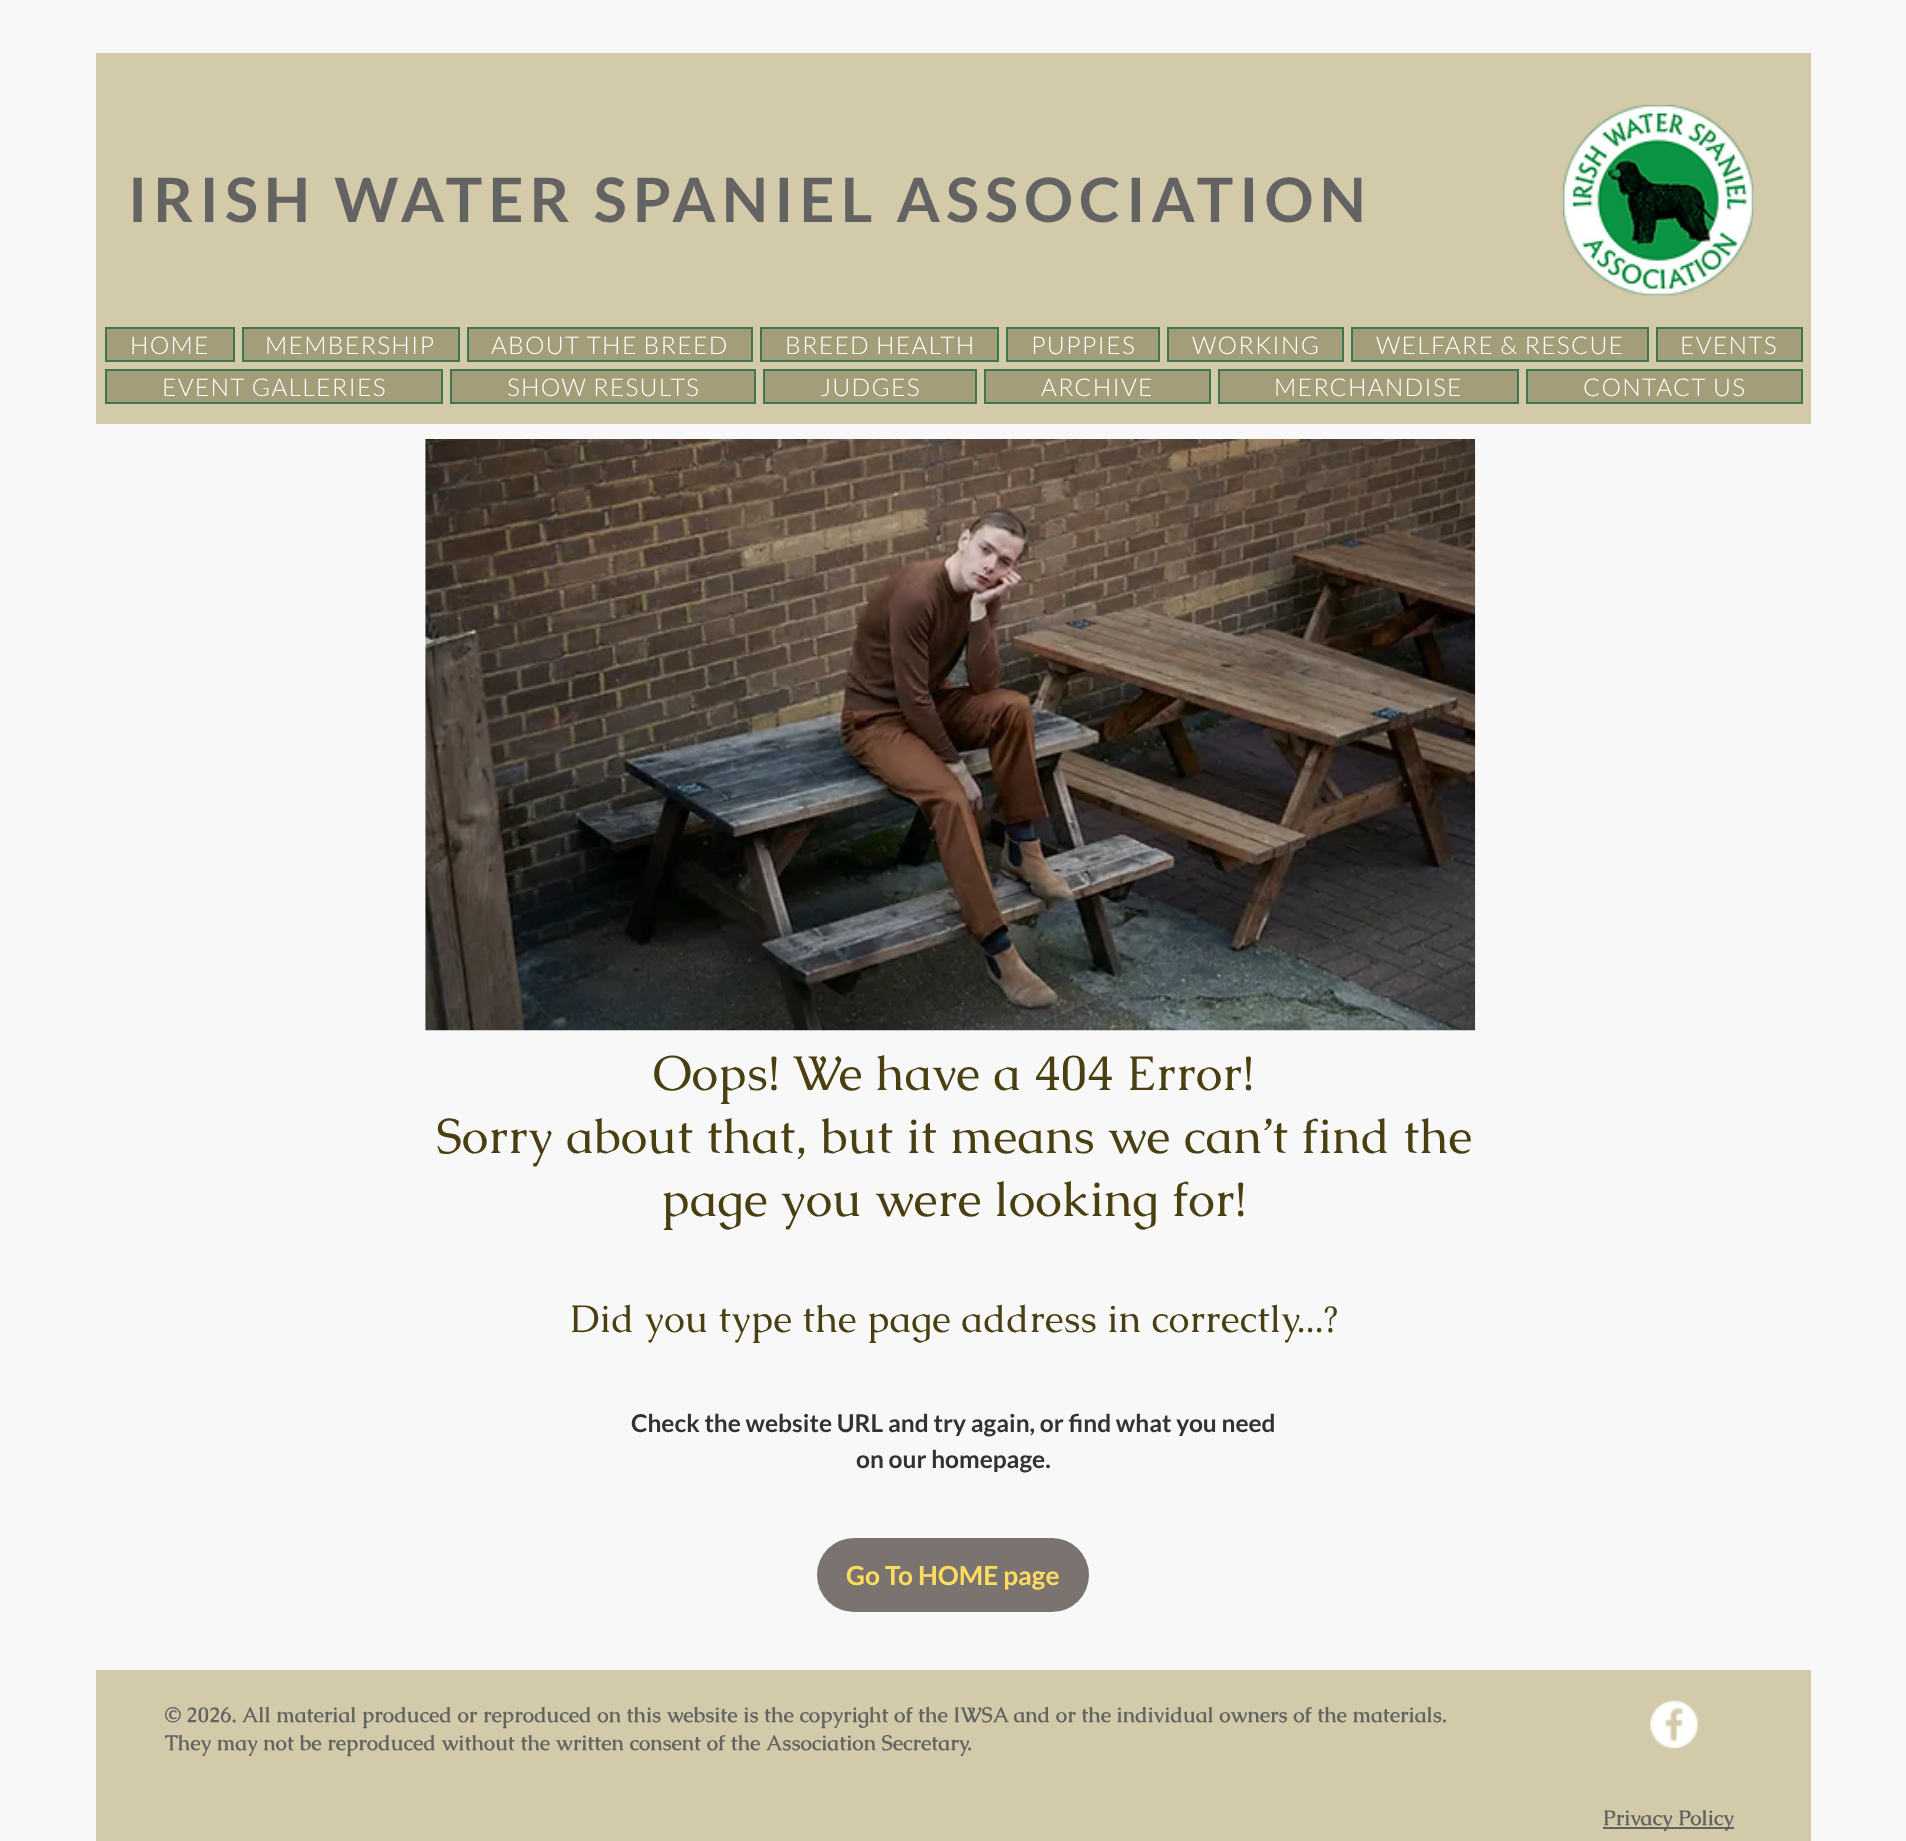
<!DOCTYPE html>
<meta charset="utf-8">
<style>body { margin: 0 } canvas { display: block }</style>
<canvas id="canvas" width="1906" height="1841"></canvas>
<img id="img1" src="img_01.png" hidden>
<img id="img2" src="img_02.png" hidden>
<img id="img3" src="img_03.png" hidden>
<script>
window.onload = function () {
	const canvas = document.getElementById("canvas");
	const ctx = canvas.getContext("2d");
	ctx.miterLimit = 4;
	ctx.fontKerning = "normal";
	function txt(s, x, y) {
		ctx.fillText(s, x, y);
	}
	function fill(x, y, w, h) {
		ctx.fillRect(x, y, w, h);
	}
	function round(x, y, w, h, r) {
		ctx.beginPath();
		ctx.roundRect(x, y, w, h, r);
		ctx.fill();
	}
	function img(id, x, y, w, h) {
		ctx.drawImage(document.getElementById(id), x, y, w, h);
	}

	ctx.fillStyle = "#F8F8F8";
	fill(0, 0, 1906, 1841);
	ctx.fillStyle = "#D2CAA8";
	fill(96, 53, 1715, 371);
	img("img1", 1562, 104, 192, 192);
	ctx.fillStyle = "#A49D79";
	ctx.beginPath();
	ctx.rect(106, 328, 128, 33);
	ctx.fill();
	ctx.strokeStyle = "#3F7652";
	ctx.lineWidth = 2;
	ctx.stroke();
	ctx.beginPath();
	ctx.rect(243, 328, 216, 33);
	ctx.fill();
	ctx.stroke();
	ctx.beginPath();
	ctx.rect(468, 328, 284, 33);
	ctx.fill();
	ctx.stroke();
	ctx.beginPath();
	ctx.rect(761, 328, 237, 33);
	ctx.fill();
	ctx.stroke();
	ctx.beginPath();
	ctx.rect(1007, 328, 152, 33);
	ctx.fill();
	ctx.stroke();
	ctx.beginPath();
	ctx.rect(1168, 328, 175, 33);
	ctx.fill();
	ctx.stroke();
	ctx.beginPath();
	ctx.rect(1352, 328, 296, 33);
	ctx.fill();
	ctx.stroke();
	ctx.beginPath();
	ctx.rect(1657, 328, 145, 33);
	ctx.fill();
	ctx.stroke();
	ctx.beginPath();
	ctx.rect(106, 370, 336, 33);
	ctx.fill();
	ctx.stroke();
	ctx.beginPath();
	ctx.rect(451, 370, 304, 33);
	ctx.fill();
	ctx.stroke();
	ctx.beginPath();
	ctx.rect(764, 370, 212, 33);
	ctx.fill();
	ctx.stroke();
	ctx.beginPath();
	ctx.rect(985, 370, 225, 33);
	ctx.fill();
	ctx.stroke();
	ctx.beginPath();
	ctx.rect(1219, 370, 299, 33);
	ctx.fill();
	ctx.stroke();
	ctx.beginPath();
	ctx.rect(1527, 370, 275, 33);
	ctx.fill();
	ctx.stroke();
	img("img2", 425, 439, 1051, 592);
	ctx.fillStyle = "#7B736F";
	round(817, 1538, 272, 74, 37);
	ctx.fillStyle = "#D2CAA8";
	fill(96, 1670, 1715, 171);
	img("img3", 1650, 1700, 48, 48);
	ctx.fillStyle = "#636363";
	fill(1603, 1827, 131, 2);
	ctx.letterSpacing = "6.1px";
	ctx.font = "bold 61.25px Lato";
	txt("IRISH WATER SPANIEL ASSOCIATION", 128, 222);
	ctx.letterSpacing = "1.25px";
	ctx.font = "300 24.5px Lato";
	ctx.fillStyle = "#FFFFFF";
	txt("HOME", 130, 354);
	txt("MEMBERSHIP", 265, 354);
	txt("ABOUT THE BREED", 491, 354);
	txt("BREED HEALTH", 785, 354);
	txt("PUPPIES", 1031, 354);
	txt("WORKING", 1192, 354);
	txt("WELFARE & RESCUE", 1376, 354);
	txt("EVENTS", 1680, 354);
	txt("EVENT GALLERIES", 162, 396);
	txt("SHOW RESULTS", 507, 396);
	txt("JUDGES", 820, 396);
	txt("ARCHIVE", 1041, 396);
	txt("MERCHANDISE", 1274, 396);
	txt("CONTACT US", 1583, 396);
	ctx.letterSpacing = "0px";
	ctx.font = "49px Caudex";
	ctx.fillStyle = "#4A3F10";
	txt("Oops! We have a 404 Error!", 653, 1090);
	txt("Sorry about that, but it means we can’t find the", 436, 1153);
	txt("page you were looking for!", 661, 1216);
	ctx.font = "38.5px Caudex";
	txt("Did you type the page address in correctly...?", 570, 1332);
	ctx.font = "bold 24.5px Lato";
	ctx.fillStyle = "#323232";
	txt("Check the website URL and try again, or find what you need", 631, 1432);
	txt("on our homepage.", 856, 1468);
	ctx.font = "bold 26.25px Lato";
	ctx.fillStyle = "#FFDE5F";
	txt("Go To HOME page", 846, 1585);
	ctx.font = "bold 21px Caudex";
	ctx.fillStyle = "#636363";
	txt("© 2026. All material produced or reproduced on this website is the copyright of the IWSA and or the individual owners of the materials.", 165, 1722);
	txt("They may not be reproduced without the written consent of the Association Secretary.", 165, 1750);
	txt("Privacy Policy", 1603, 1825);
};
</script>
